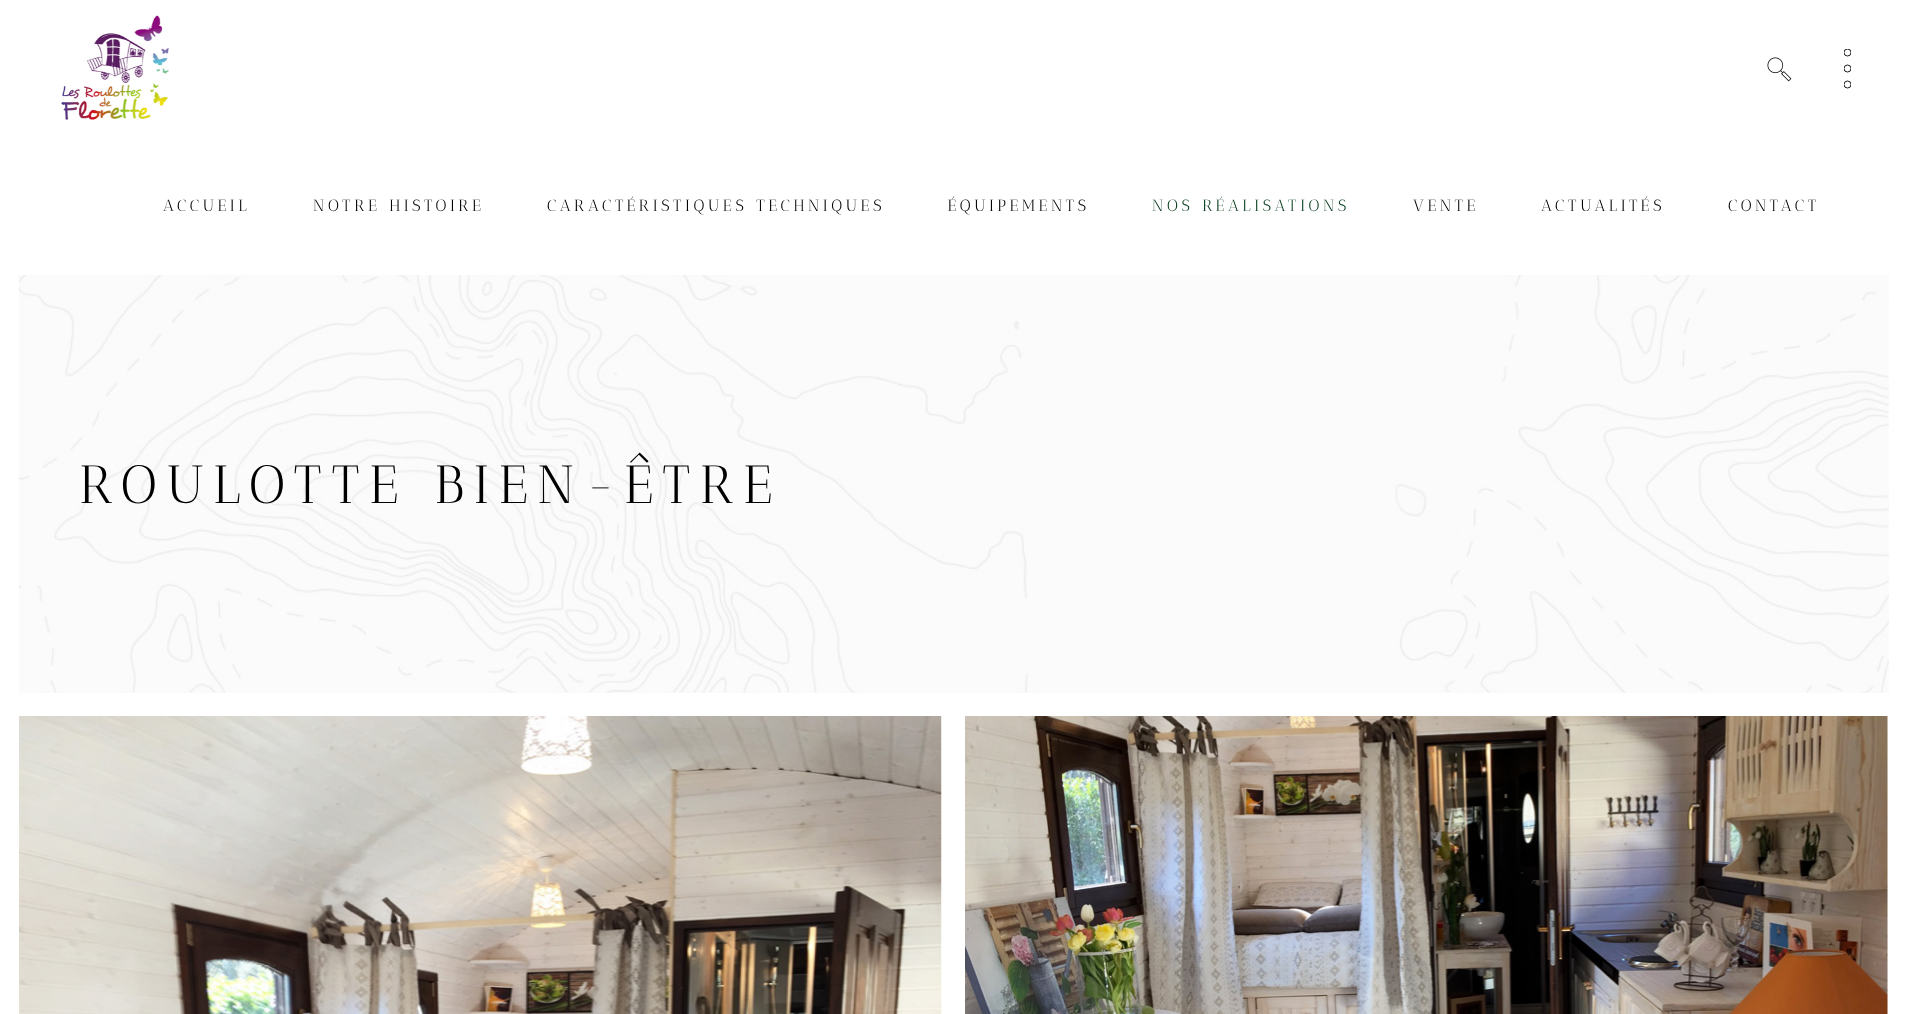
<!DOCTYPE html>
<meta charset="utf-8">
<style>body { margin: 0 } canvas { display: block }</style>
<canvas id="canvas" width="1907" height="1014"></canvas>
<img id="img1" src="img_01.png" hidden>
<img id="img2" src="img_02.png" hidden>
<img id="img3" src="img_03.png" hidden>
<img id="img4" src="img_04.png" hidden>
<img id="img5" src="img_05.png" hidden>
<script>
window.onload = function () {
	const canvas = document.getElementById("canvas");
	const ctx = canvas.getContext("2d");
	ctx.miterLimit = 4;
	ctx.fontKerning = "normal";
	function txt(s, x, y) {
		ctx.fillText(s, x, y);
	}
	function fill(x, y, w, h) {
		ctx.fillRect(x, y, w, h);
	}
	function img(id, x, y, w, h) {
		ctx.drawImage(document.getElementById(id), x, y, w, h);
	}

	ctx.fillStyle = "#FFFFFF";
	fill(0, 0, 1907, 1014);
	img("img1", 61, 15, 108, 105);
	ctx.save();
	ctx.beginPath();
	ctx.rect(1844, 49, 7, 40);
	ctx.clip();
	ctx.beginPath();
	ctx.arc(1847.5, 52.5, 3.5, 0, Math.PI * 2);
	ctx.strokeStyle = "#000000";
	ctx.lineWidth = 0.9;
	ctx.stroke();
	ctx.restore();
	img("img2", 1767, 57, 25, 25);
	ctx.save();
	ctx.beginPath();
	ctx.rect(1844, 49, 7, 40);
	ctx.clip();
	ctx.beginPath();
	ctx.arc(1847.5, 68.5, 3.5, 0, Math.PI * 2);
	ctx.strokeStyle = "#000000";
	ctx.lineWidth = 0.9;
	ctx.stroke();
	ctx.beginPath();
	ctx.arc(1847.5, 84.5, 3.5, 0, Math.PI * 2);
	ctx.stroke();
	ctx.restore();
	img("img3", 18, 275, 1871, 418);
	img("img4", 19, 716, 923, 298);
	img("img5", 965, 716, 923, 298);
	ctx.letterSpacing = "3.75px";
	ctx.font = "16.25px Antic Didone";
	ctx.fillStyle = "#000000";
	txt("ACCUEIL", 163, 211);
	txt("NOTRE HISTOIRE", 313, 211);
	txt("CARACTÉRISTIQUES TECHNIQUES", 547, 211);
	txt("ÉQUIPEMENTS", 948, 211);
	ctx.fillStyle = "#003918";
	txt("NOS RÉALISATIONS", 1152, 211);
	ctx.fillStyle = "#000000";
	txt("VENTE", 1413, 211);
	txt("ACTUALITÉS", 1541, 211);
	txt("CONTACT", 1728, 211);
	ctx.letterSpacing = "10px";
	ctx.font = "53.75px Antic Didone";
	txt("ROULOTTE BIEN-ÊTRE", 79, 503);
};
</script>
